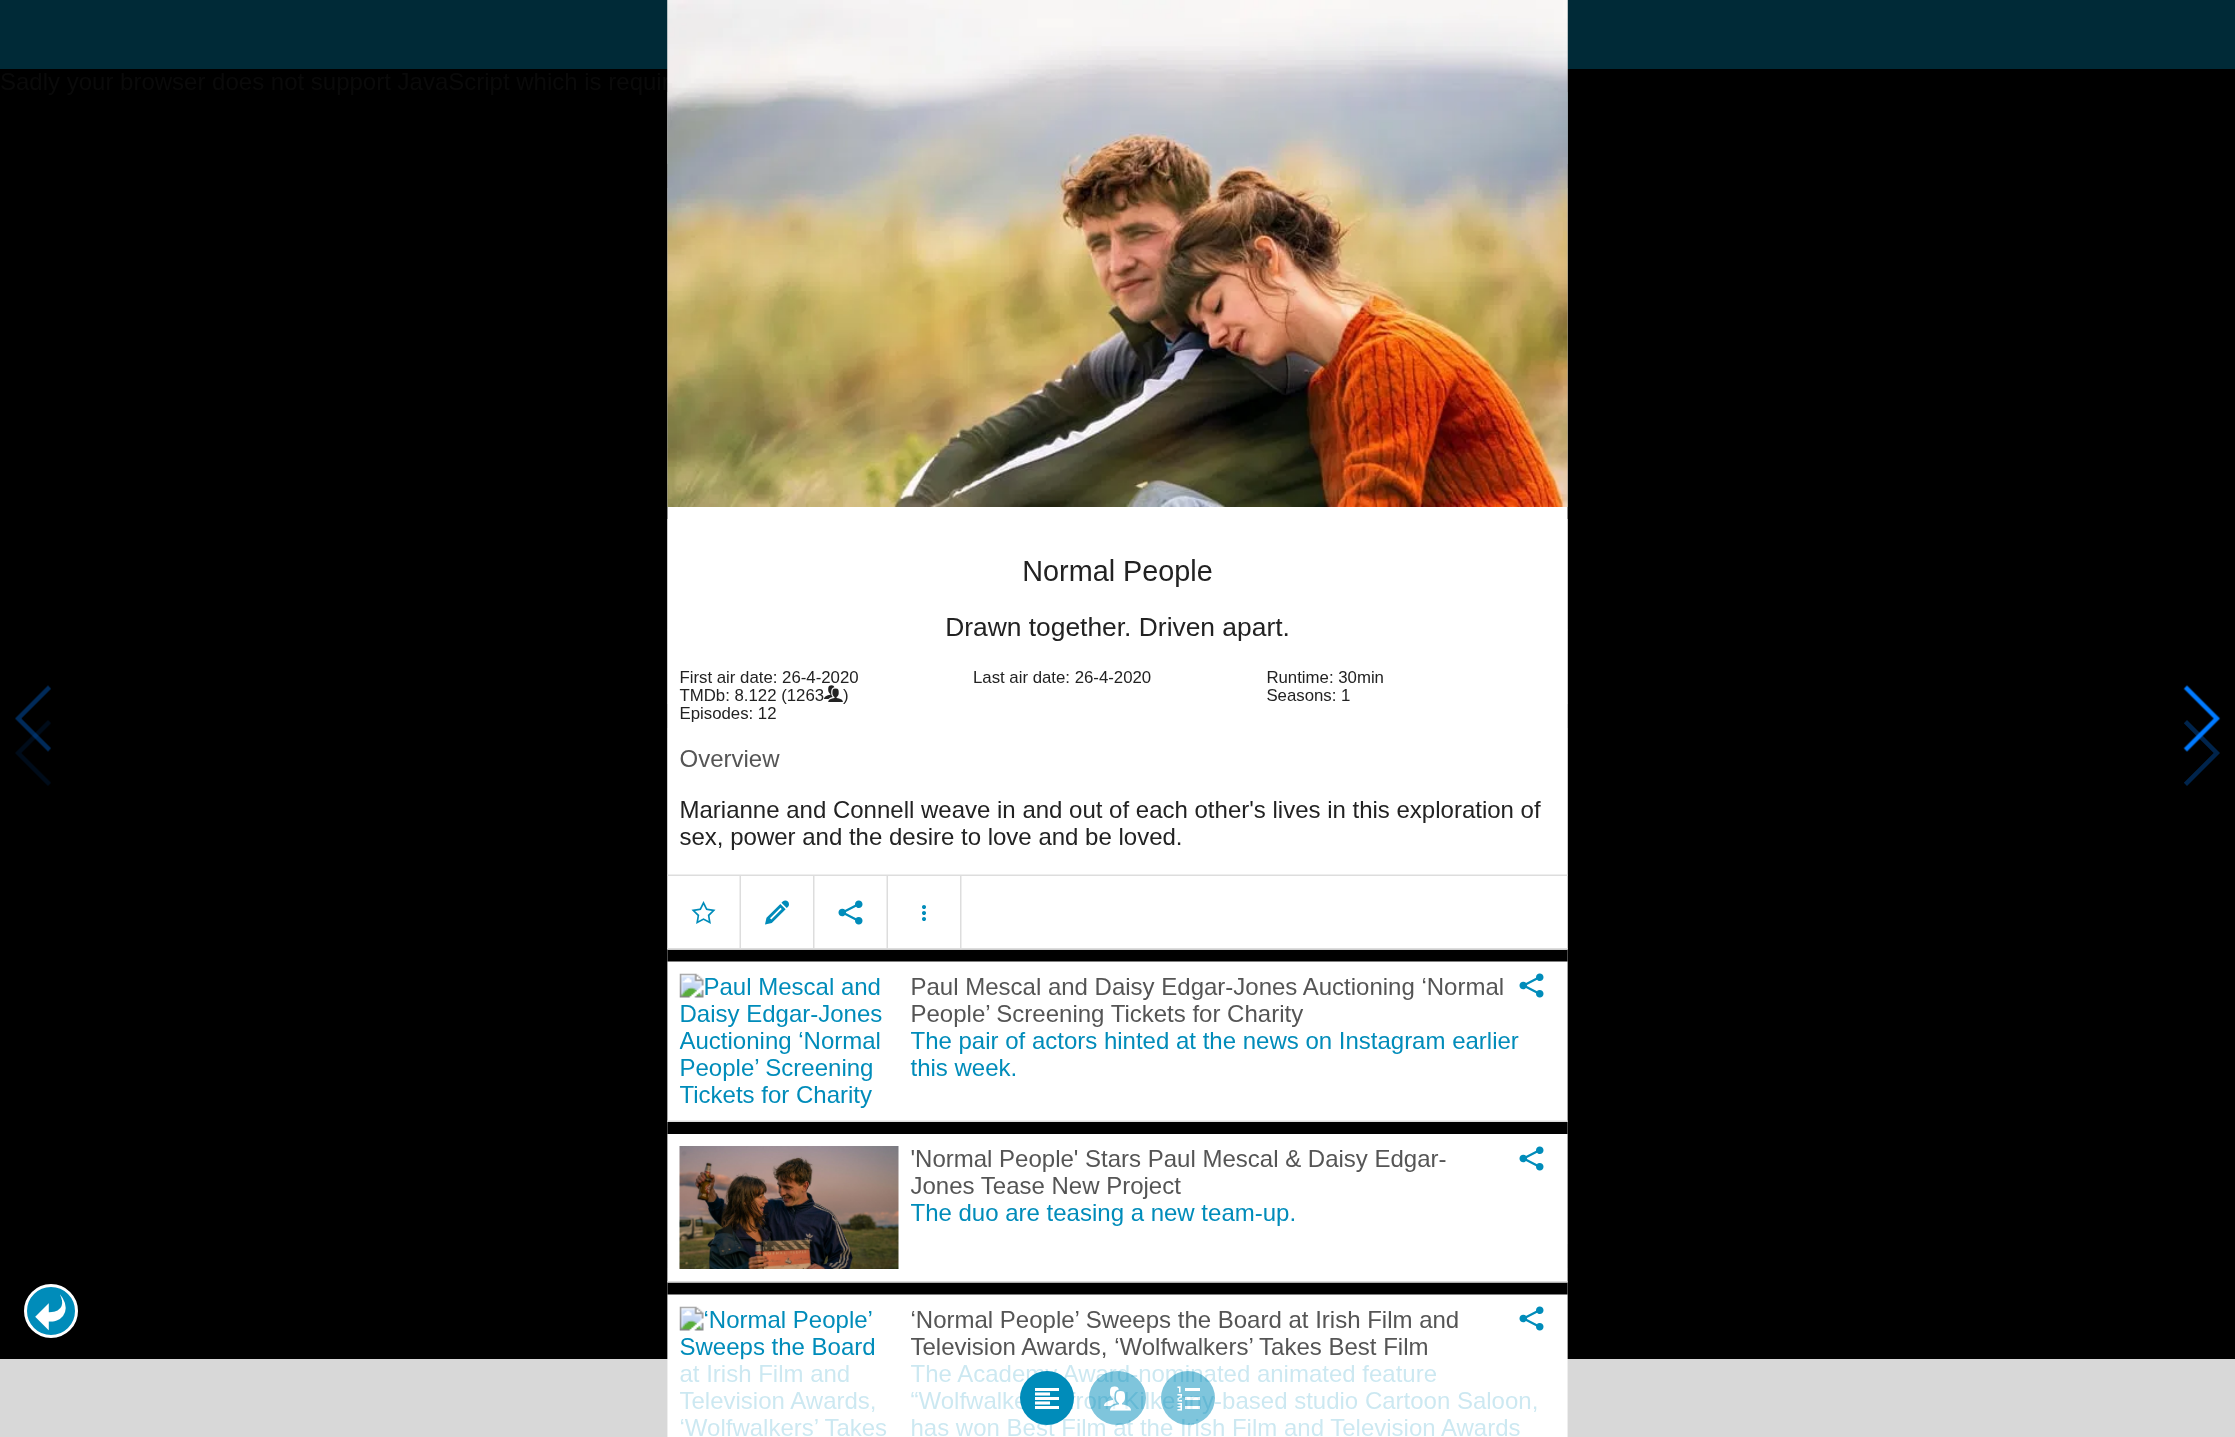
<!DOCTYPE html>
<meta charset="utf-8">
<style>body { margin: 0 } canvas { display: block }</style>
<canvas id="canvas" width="2235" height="1437"></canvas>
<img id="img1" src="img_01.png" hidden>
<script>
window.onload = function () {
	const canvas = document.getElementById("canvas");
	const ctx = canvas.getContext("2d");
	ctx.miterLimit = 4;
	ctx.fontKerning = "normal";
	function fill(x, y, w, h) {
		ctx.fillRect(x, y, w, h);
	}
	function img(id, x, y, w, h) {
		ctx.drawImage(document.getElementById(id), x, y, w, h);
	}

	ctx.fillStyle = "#FFFFFF";
	fill(0, 0, 2235, 1437);
	img("img1", 0, 0, 2235, 1437);
};
</script>
